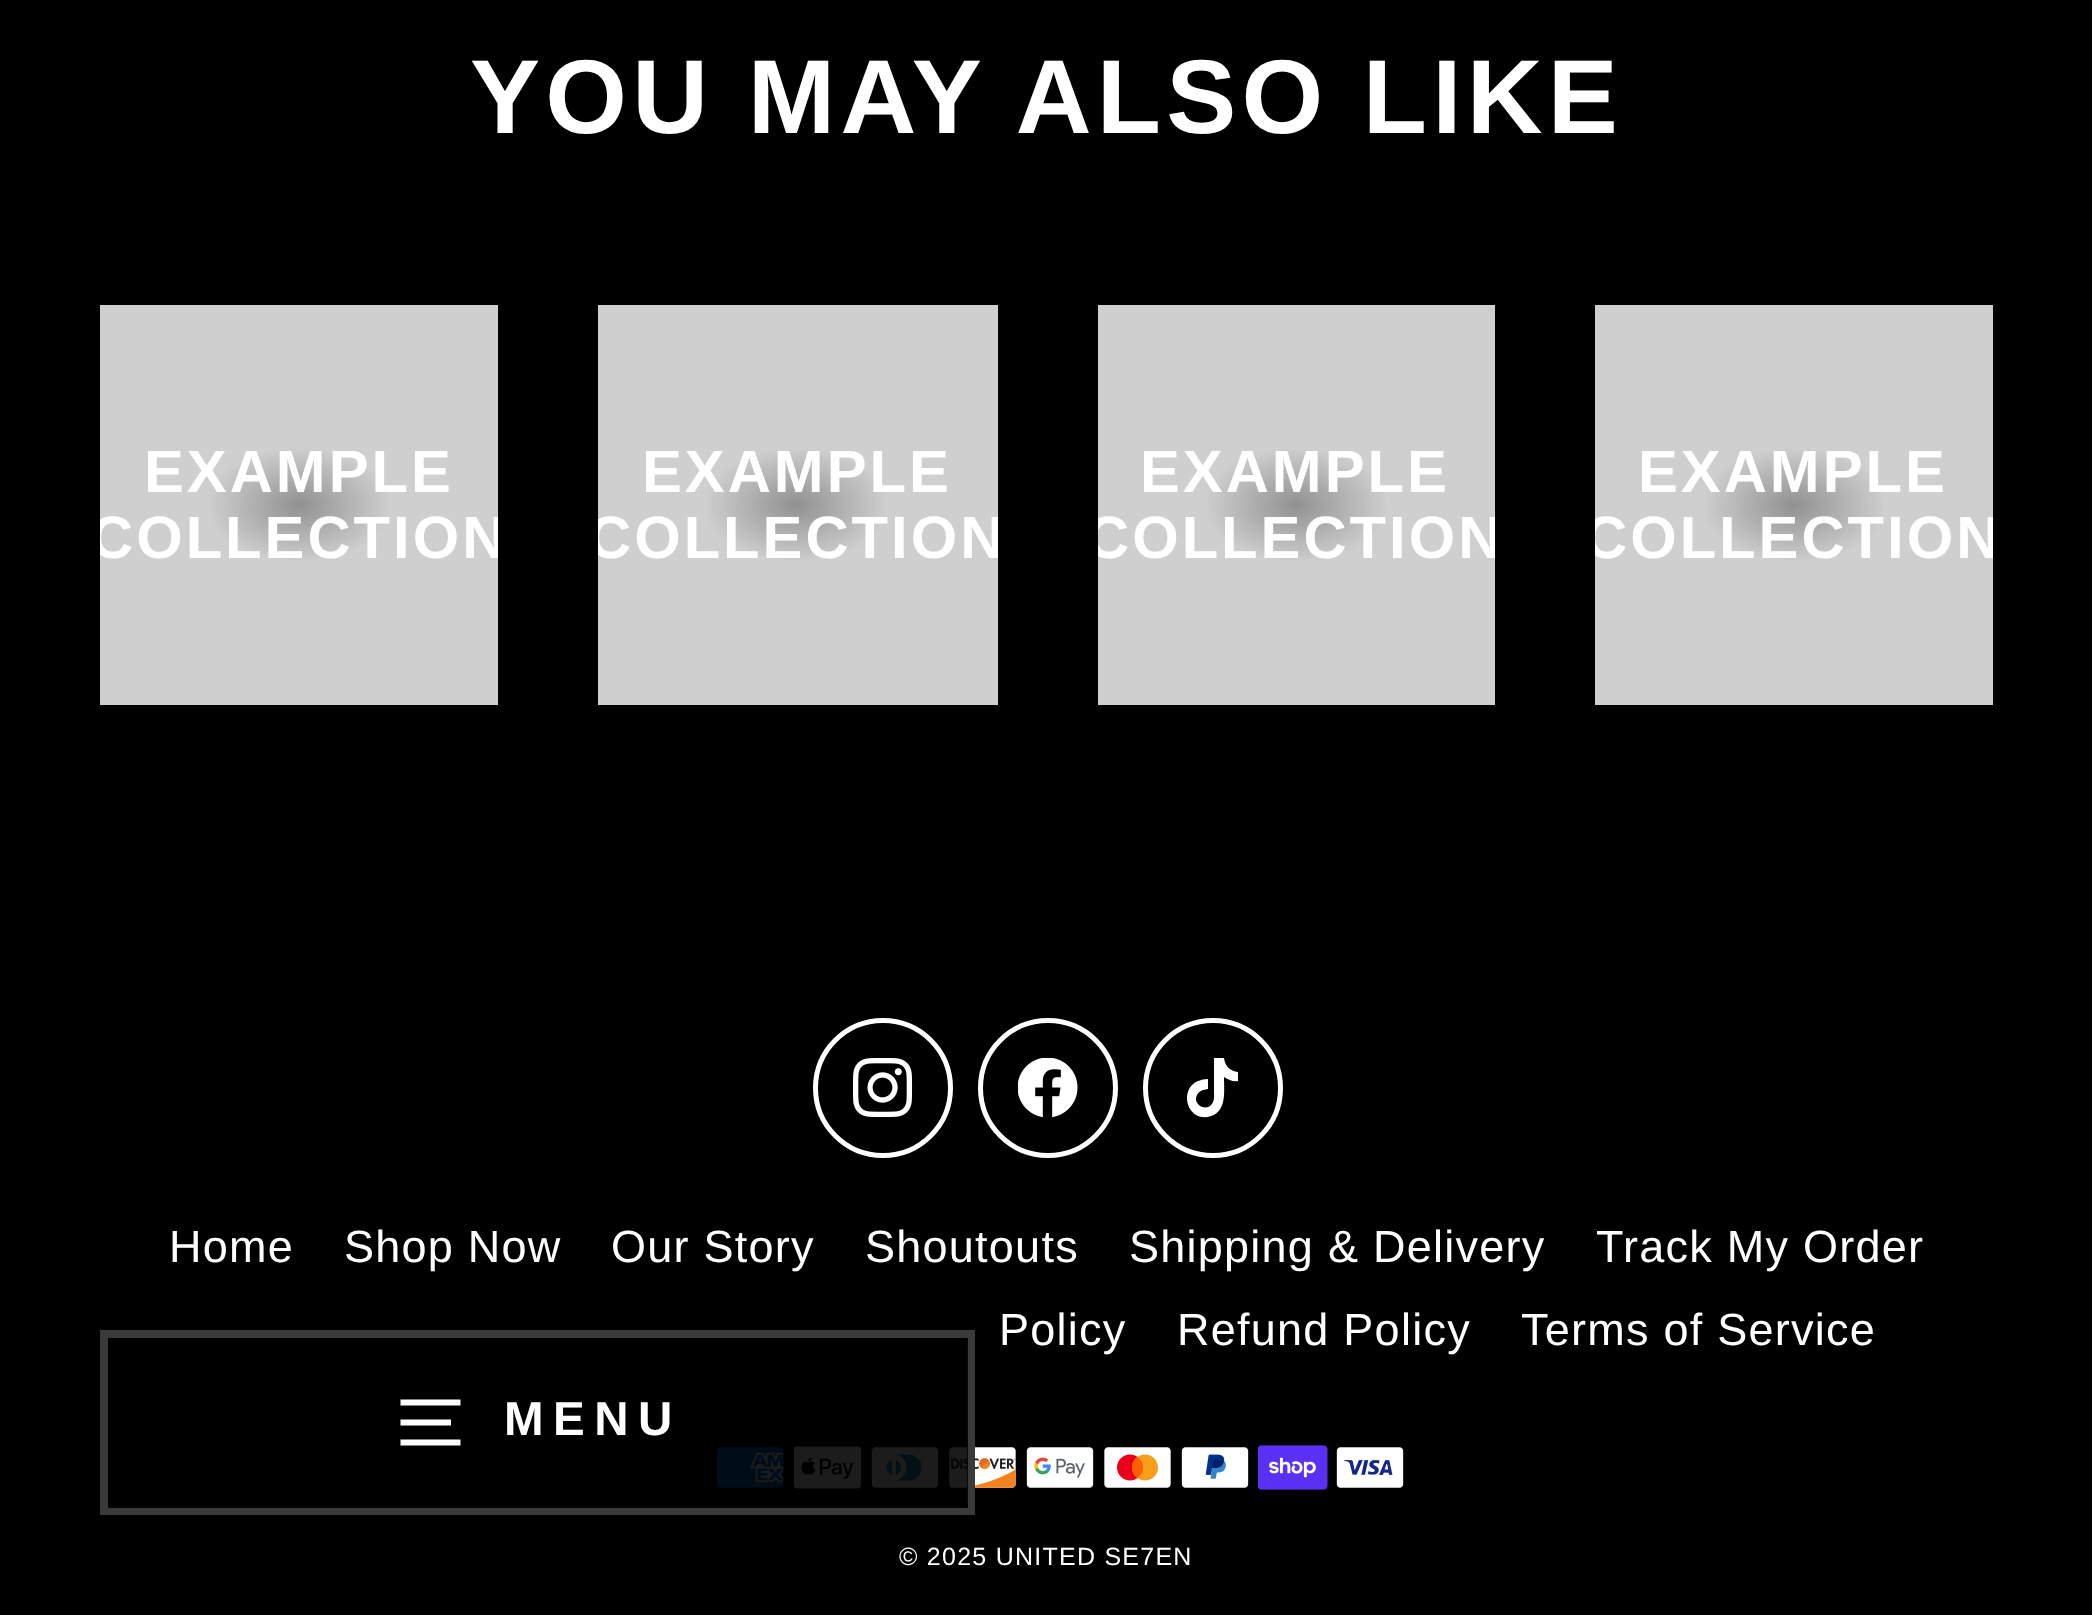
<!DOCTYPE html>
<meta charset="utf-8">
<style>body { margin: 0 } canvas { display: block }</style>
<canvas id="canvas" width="2092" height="1615"></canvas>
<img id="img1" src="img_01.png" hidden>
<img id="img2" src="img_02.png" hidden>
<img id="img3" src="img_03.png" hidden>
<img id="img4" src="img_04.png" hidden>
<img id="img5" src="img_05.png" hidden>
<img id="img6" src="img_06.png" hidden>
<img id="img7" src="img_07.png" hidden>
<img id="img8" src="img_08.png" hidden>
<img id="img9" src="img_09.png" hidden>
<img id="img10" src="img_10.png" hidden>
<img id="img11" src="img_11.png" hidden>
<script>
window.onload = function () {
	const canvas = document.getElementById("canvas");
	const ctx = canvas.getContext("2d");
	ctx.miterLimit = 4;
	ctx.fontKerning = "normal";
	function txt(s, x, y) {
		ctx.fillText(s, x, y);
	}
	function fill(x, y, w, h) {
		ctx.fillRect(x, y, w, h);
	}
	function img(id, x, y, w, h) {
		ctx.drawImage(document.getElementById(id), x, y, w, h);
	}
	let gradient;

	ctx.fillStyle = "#000000";
	fill(0, 0, 2092, 1615);
	ctx.fillStyle = "#CFCFCF";
	fill(100, 305, 398, 400);
	gradient = ctx.createRadialGradient(299, 808, 0, 299, 808, 232);
	gradient.addColorStop(0, "#919191");
	gradient.addColorStop(0.4, "#CFCFCF");
	ctx.fillStyle = gradient;
	ctx.beginPath();
	ctx.rect(210, 449, 178, 112);
	ctx.save();
	ctx.clip();
	ctx.scale(1, 145 / 232);
	ctx.fillRect(0, 0, 2092, 2584);
	ctx.restore();
	ctx.fillStyle = "#CFCFCF";
	fill(598, 305, 400, 400);
	gradient = ctx.createRadialGradient(796, 808, 0, 796, 808, 232);
	gradient.addColorStop(0, "#919191");
	gradient.addColorStop(0.4, "#CFCFCF");
	ctx.fillStyle = gradient;
	ctx.beginPath();
	ctx.rect(707, 449, 178, 112);
	ctx.save();
	ctx.clip();
	ctx.scale(1, 145 / 232);
	ctx.fillRect(0, 0, 2092, 2584);
	ctx.restore();
	ctx.fillStyle = "#CFCFCF";
	fill(1098, 305, 397, 400);
	gradient = ctx.createRadialGradient(1296, 808, 0, 1296, 808, 232);
	gradient.addColorStop(0, "#919191");
	gradient.addColorStop(0.4, "#CFCFCF");
	ctx.fillStyle = gradient;
	ctx.beginPath();
	ctx.rect(1207, 449, 178, 112);
	ctx.save();
	ctx.clip();
	ctx.scale(1, 145 / 232);
	ctx.fillRect(0, 0, 2092, 2584);
	ctx.restore();
	ctx.fillStyle = "#CFCFCF";
	fill(1595, 305, 398, 400);
	gradient = ctx.createRadialGradient(1794, 808, 0, 1794, 808, 232);
	gradient.addColorStop(0, "#919191");
	gradient.addColorStop(0.4, "#CFCFCF");
	ctx.fillStyle = gradient;
	ctx.beginPath();
	ctx.rect(1705, 449, 178, 112);
	ctx.save();
	ctx.clip();
	ctx.scale(1, 145 / 232);
	ctx.fillRect(0, 0, 2092, 2584);
	ctx.restore();
	ctx.beginPath();
	ctx.arc(883, 1088, 67.5, 0, Math.PI * 2);
	ctx.strokeStyle = "#FFFFFF";
	ctx.lineWidth = 5;
	ctx.stroke();
	img("img1", 853, 1058, 60, 60);
	ctx.beginPath();
	ctx.arc(1048, 1088, 67.5, 0, Math.PI * 2);
	ctx.stroke();
	img("img2", 1018, 1058, 60, 60);
	ctx.beginPath();
	ctx.arc(1213, 1088, 67.5, 0, Math.PI * 2);
	ctx.stroke();
	ctx.fillStyle = "#FFFFFF";
	ctx.beginPath();
	ctx.moveTo(1224, 1058);
	ctx.bezierCurveTo(1225, 1066, 1230, 1071, 1238, 1072);
	ctx.lineTo(1238, 1081);
	ctx.bezierCurveTo(1233, 1082, 1229, 1080, 1224, 1077);
	ctx.bezierCurveTo(1224, 1091, 1227, 1111, 1211, 1116);
	ctx.bezierCurveTo(1185, 1125, 1175, 1080, 1208, 1079);
	ctx.lineTo(1208, 1089);
	ctx.lineTo(1203, 1090);
	ctx.bezierCurveTo(1198, 1092, 1196, 1095, 1196, 1100);
	ctx.bezierCurveTo(1198, 1110, 1216, 1112, 1214, 1093);
	ctx.lineTo(1214, 1058);
	ctx.closePath();
	ctx.fill();
	img("img3", 716, 1447, 68, 41);
	img("img4", 794, 1446, 67, 43);
	img("img5", 871, 1447, 68, 41);
	img("img6", 949, 1447, 67, 41);
	img("img7", 1026, 1447, 68, 41);
	img("img8", 1104, 1447, 67, 41);
	img("img9", 1181, 1447, 68, 41);
	img("img10", 1258, 1445, 70, 45);
	img("img11", 1336, 1447, 68, 41);
	ctx.strokeStyle = "#3A3A3A";
	ctx.lineWidth = 8;
	ctx.strokeRect(104, 1334, 867, 177);
	ctx.fillStyle = "rgba(0, 0, 0, 0.89)";
	fill(108, 1338, 860, 170);
	ctx.beginPath();
	ctx.moveTo(400.5, 1402.5);
	ctx.lineTo(460.5, 1402.5);
	ctx.moveTo(400.5, 1422.5);
	ctx.lineTo(451, 1422.5);
	ctx.moveTo(400.5, 1442.5);
	ctx.lineTo(460.5, 1442.5);
	ctx.strokeStyle = "#FFFFFF";
	ctx.lineWidth = 5.9;
	ctx.stroke();
	ctx.letterSpacing = "5.25px";
	ctx.font = "bold 105px Liberation Sans";
	ctx.fillStyle = "#FFFFFF";
	txt("YOU MAY ALSO LIKE", 470, 133);
	ctx.letterSpacing = "3px";
	ctx.font = "bold 59.75px Liberation Sans";
	txt("EXAMPLE", 144, 492);
	ctx.save();
	ctx.beginPath();
	ctx.rect(100, 305, 398, 400);
	ctx.clip();
	txt("COLLECTION", 90, 558);
	ctx.restore();
	txt("EXAMPLE", 642, 492);
	ctx.save();
	ctx.beginPath();
	ctx.rect(598, 305, 400, 400);
	ctx.clip();
	txt("COLLECTION", 588, 558);
	ctx.restore();
	txt("EXAMPLE", 1140, 492);
	ctx.save();
	ctx.beginPath();
	ctx.rect(1098, 305, 397, 400);
	ctx.clip();
	txt("COLLECTION", 1086, 558);
	ctx.restore();
	txt("EXAMPLE", 1638, 492);
	ctx.save();
	ctx.beginPath();
	ctx.rect(1595, 305, 398, 400);
	ctx.clip();
	txt("COLLECTION", 1584, 558);
	ctx.restore();
	ctx.letterSpacing = "1.25px";
	ctx.font = "45px Liberation Sans";
	txt("Home", 169, 1262);
	txt("Shop Now", 344, 1262);
	txt("Our Story", 611, 1262);
	txt("Shoutouts", 865, 1262);
	txt("Shipping & Delivery", 1129, 1262);
	txt("Track My Order", 1596, 1262);
	txt("Policy", 999, 1345);
	txt("Refund Policy", 1177, 1345);
	txt("Terms of Service", 1521, 1345);
	ctx.font = "25px Liberation Sans";
	txt("© 2025 UNITED SE7EN", 899, 1565);
	ctx.letterSpacing = "9.5px";
	ctx.font = "bold 47.5px Liberation Sans";
	txt("MENU", 504, 1435);
};
</script>
